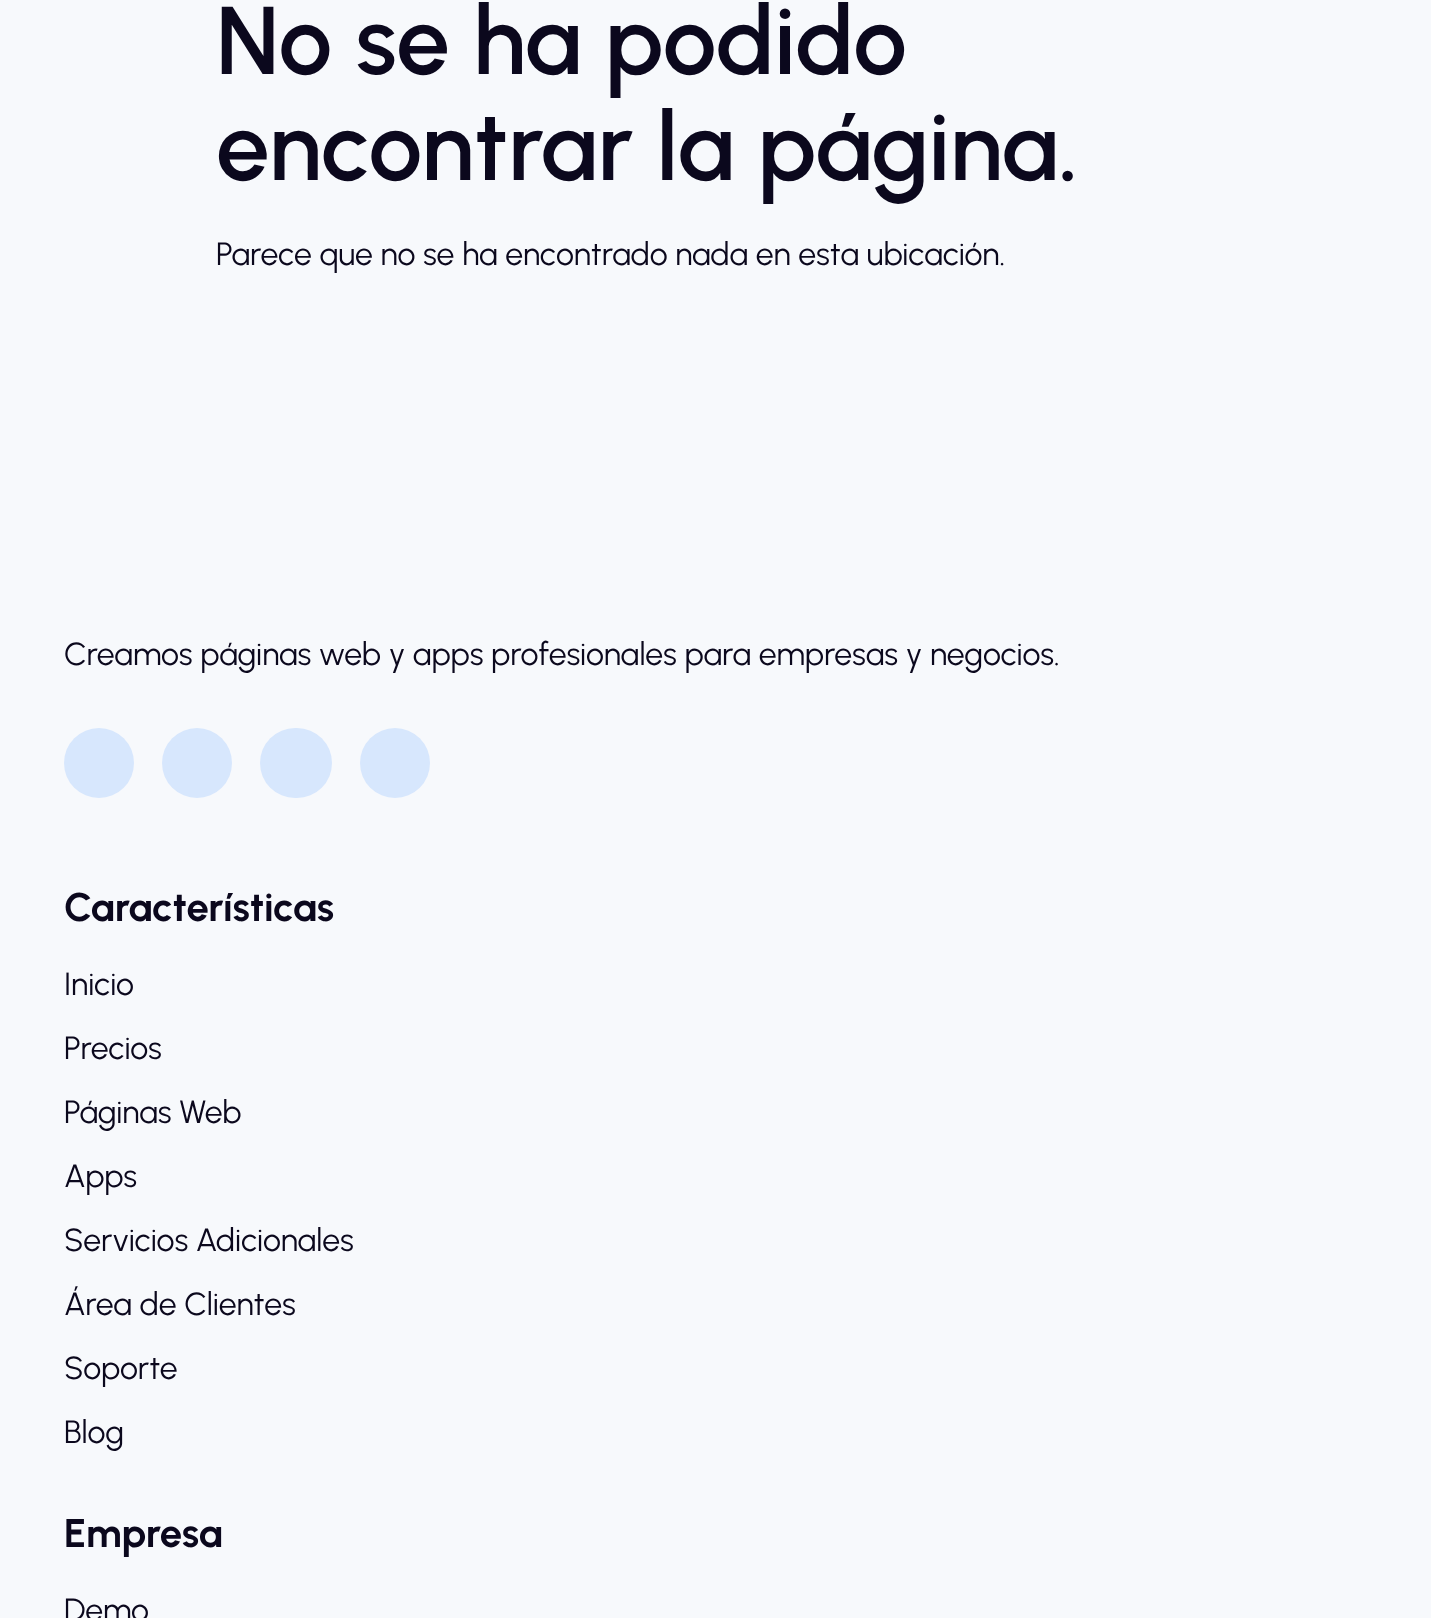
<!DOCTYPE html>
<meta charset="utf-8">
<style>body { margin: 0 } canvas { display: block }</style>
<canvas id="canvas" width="1431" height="1618"></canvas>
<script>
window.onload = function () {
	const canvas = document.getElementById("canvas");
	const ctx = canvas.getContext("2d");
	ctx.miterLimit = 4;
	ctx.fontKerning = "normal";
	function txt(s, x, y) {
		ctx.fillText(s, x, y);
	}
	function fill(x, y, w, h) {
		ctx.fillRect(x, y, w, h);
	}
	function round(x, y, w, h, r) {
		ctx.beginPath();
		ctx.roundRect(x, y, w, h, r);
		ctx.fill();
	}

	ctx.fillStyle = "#F7F9FC";
	fill(0, 0, 1431, 1618);
	ctx.fillStyle = "#D7E7FD";
	ctx.beginPath();
	ctx.arc(99, 763, 35, 0, Math.PI * 2);
	ctx.fill();
	ctx.beginPath();
	ctx.arc(197, 763, 35, 0, Math.PI * 2);
	ctx.fill();
	round(260, 728, 72, 70, 35);
	ctx.beginPath();
	ctx.arc(395, 763, 35, 0, Math.PI * 2);
	ctx.fill();
	ctx.font = "600 96px Urbanist";
	ctx.fillStyle = "#0B081D";
	txt("No se ha podido", 216, 74);
	txt("encontrar la página.", 216, 180);
	ctx.font = "32px Urbanist";
	txt("Parece que no se ha encontrado nada en esta ubicación.", 216, 265);
	txt("Creamos páginas web y apps profesionales para empresas y negocios.", 64, 665);
	ctx.font = "bold 40px Urbanist";
	txt("Características", 64, 921);
	ctx.font = "32px Urbanist";
	txt("Inicio", 64, 995);
	txt("Precios", 64, 1059);
	txt("Páginas Web", 64, 1123);
	txt("Apps", 64, 1187);
	txt("Servicios Adicionales", 64, 1251);
	txt("Área de Clientes", 64, 1315);
	txt("Soporte", 64, 1379);
	txt("Blog", 64, 1443);
	ctx.font = "bold 40px Urbanist";
	txt("Empresa", 64, 1547);
	ctx.font = "32px Urbanist";
	txt("Demo", 64, 1621);
};
</script>
